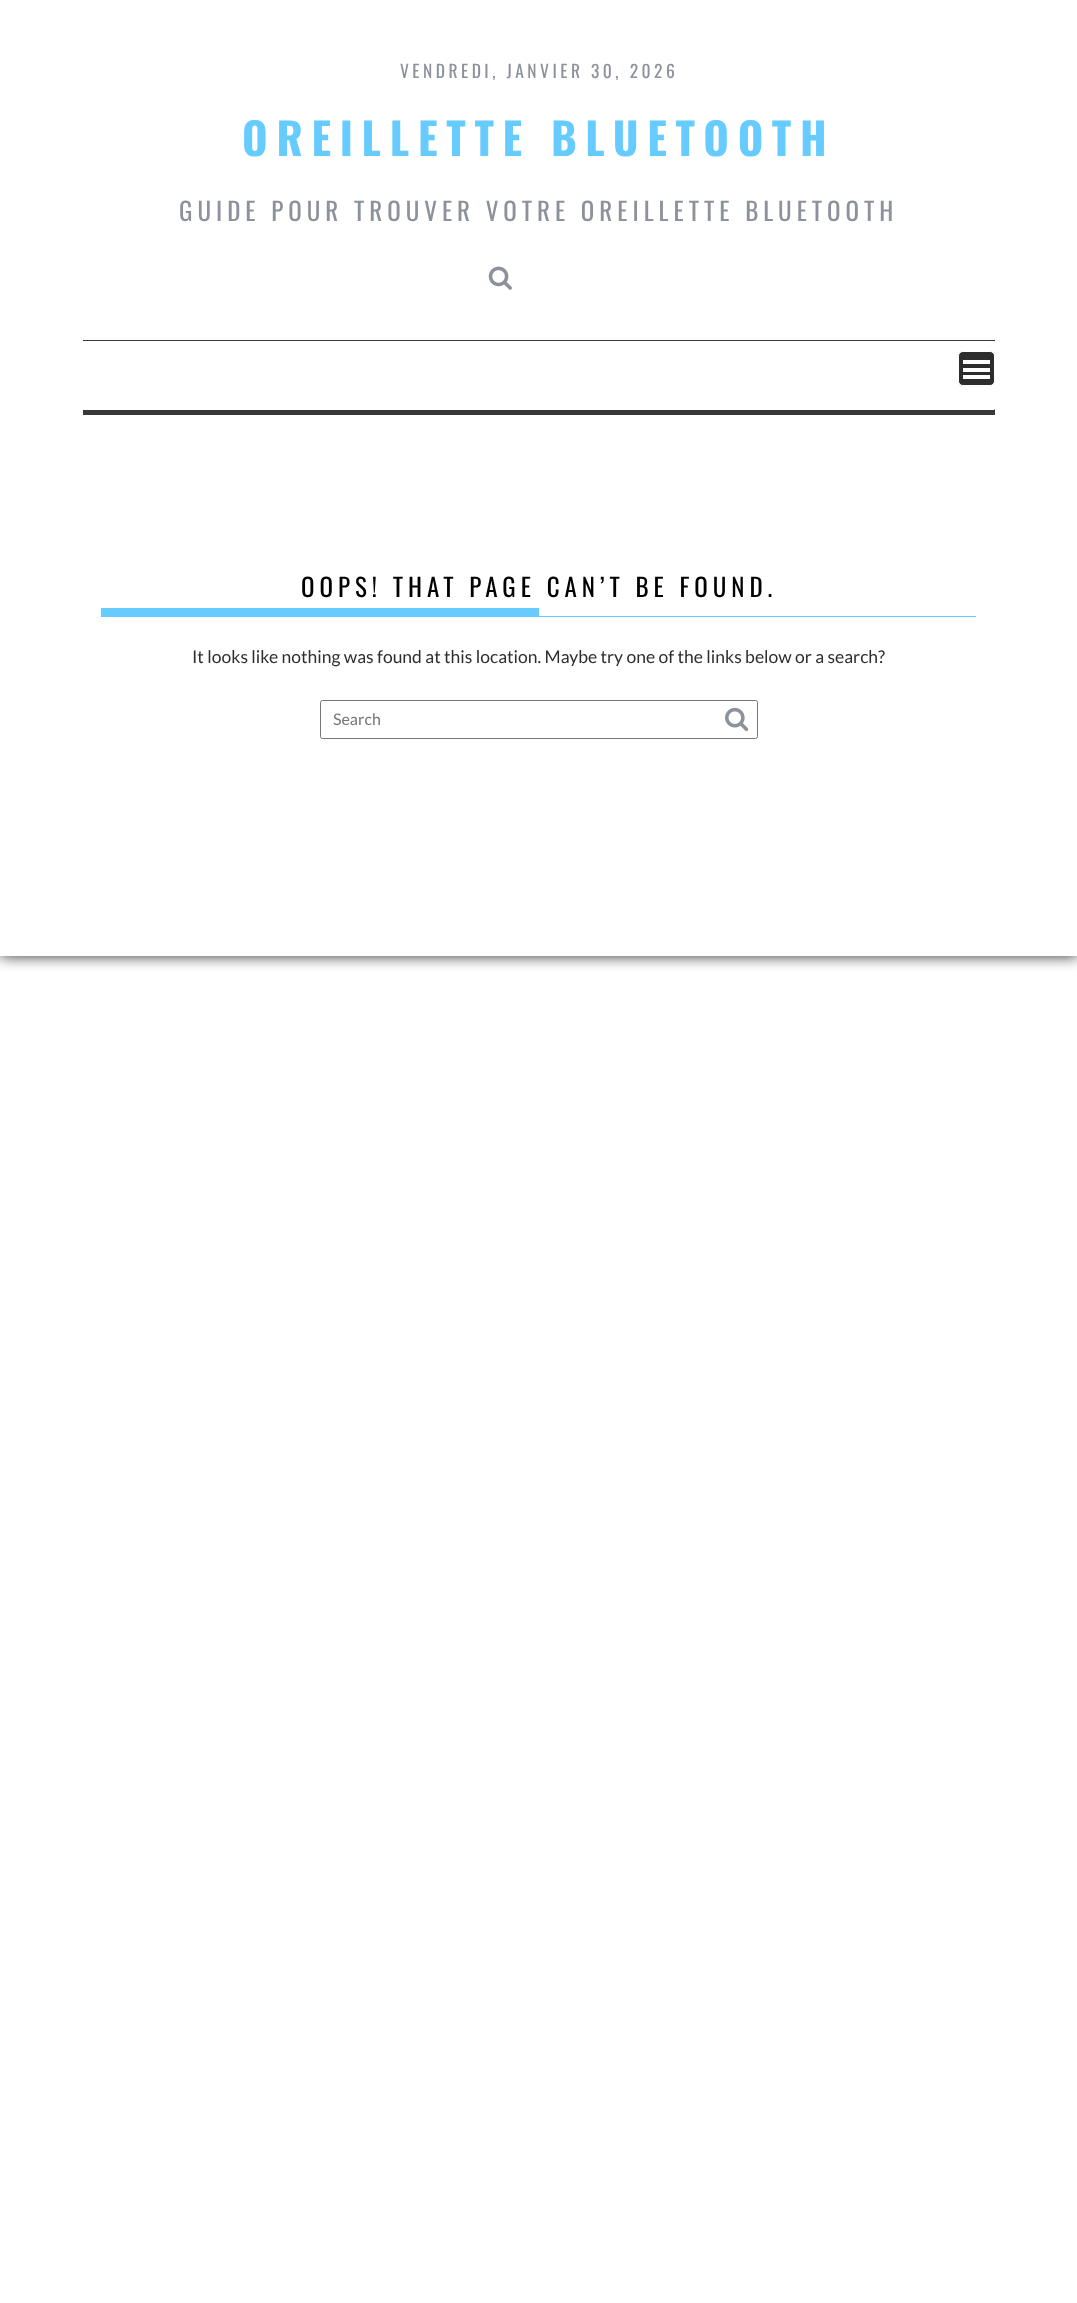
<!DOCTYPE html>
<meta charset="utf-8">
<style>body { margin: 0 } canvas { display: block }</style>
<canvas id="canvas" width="1077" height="2303"></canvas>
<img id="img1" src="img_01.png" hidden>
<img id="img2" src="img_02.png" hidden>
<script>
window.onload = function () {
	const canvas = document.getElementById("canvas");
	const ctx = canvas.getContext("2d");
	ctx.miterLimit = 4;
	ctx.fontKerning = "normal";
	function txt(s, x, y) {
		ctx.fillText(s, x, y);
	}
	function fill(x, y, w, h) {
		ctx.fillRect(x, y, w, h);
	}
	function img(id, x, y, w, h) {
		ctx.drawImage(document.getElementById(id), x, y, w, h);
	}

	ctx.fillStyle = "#FFFFFF";
	fill(0, 0, 1077, 2303);
	ctx.save();
	ctx.beginPath();
	ctx.rect(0, 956, 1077, 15);
	ctx.clip();
	ctx.fillStyle = "#2D2D2D";
	ctx.filter = "blur(7.5px)";
	ctx.beginPath();
	ctx.rect(0, 0, 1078, 956);
	ctx.fill();
	ctx.filter = "none";
	ctx.restore();
	img("img1", 488, 266, 24, 24);
	ctx.save();
	ctx.beginPath();
	ctx.rect(83, 341, 912, 74);
	ctx.clip();
	ctx.fillStyle = "#393939";
	ctx.beginPath();
	ctx.moveTo(-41, 218);
	ctx.lineTo(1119, 218);
	ctx.lineTo(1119, 539);
	ctx.lineTo(-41, 539);
	ctx.closePath();
	ctx.moveTo(81, 334);
	ctx.lineTo(994, 334);
	ctx.bezierCurveTo(994, 334, 995, 334, 995, 335);
	ctx.lineTo(995, 409);
	ctx.bezierCurveTo(995, 409, 994, 410, 994, 410);
	ctx.lineTo(81, 410);
	ctx.bezierCurveTo(81, 410, 80, 409, 80, 409);
	ctx.lineTo(80, 335);
	ctx.bezierCurveTo(80, 334, 81, 334, 81, 334);
	ctx.closePath();
	ctx.fill("evenodd");
	ctx.restore();
	ctx.fillStyle = "#393939";
	fill(83, 340, 912, 1);
	ctx.fillStyle = "#2D2D2D";
	ctx.beginPath();
	ctx.roundRect(958.5, 351.5, 36, 34, 4.5);
	ctx.fill();
	ctx.strokeStyle = "#FFFFFF";
	ctx.stroke();
	ctx.fillStyle = "#FFFFFF";
	fill(963, 375, 27, 4);
	fill(963, 368, 27, 4);
	fill(963, 360, 27, 4);
	ctx.fillStyle = "#66CCFF";
	fill(101, 616, 875, 1);
	fill(101, 608, 438, 8);
	ctx.beginPath();
	ctx.roundRect(320.5, 700.5, 437, 38, 2);
	ctx.strokeStyle = "#767676";
	ctx.stroke();
	img("img2", 725, 707, 24, 24);
	ctx.letterSpacing = "3.5px";
	ctx.font = "17.5px Oswald";
	ctx.fillStyle = "#8C919B";
	txt("VENDREDI, JANVIER 30, 2026", 400, 78);
	ctx.letterSpacing = "8.75px";
	ctx.font = "bold 43.75px Oswald";
	ctx.fillStyle = "#66CCFF";
	txt("OREILLETTE BLUETOOTH", 242, 156);
	ctx.letterSpacing = "5px";
	ctx.font = "25px Oswald";
	ctx.fillStyle = "#8C919B";
	txt("GUIDE POUR TROUVER VOTRE OREILLETTE BLUETOOTH", 179, 221);
	ctx.fillStyle = "#000000";
	txt("OOPS! THAT PAGE CAN’T BE FOUND.", 301, 597);
	ctx.letterSpacing = "0px";
	ctx.font = "17.5px Lato";
	ctx.fillStyle = "#2D2D2D";
	txt("It looks like nothing was found at this location. Maybe try one of the links below or a search?", 192, 663);
	ctx.font = "16px Lato";
	ctx.fillStyle = "#757575";
	txt("Search", 333, 725);
};
</script>
